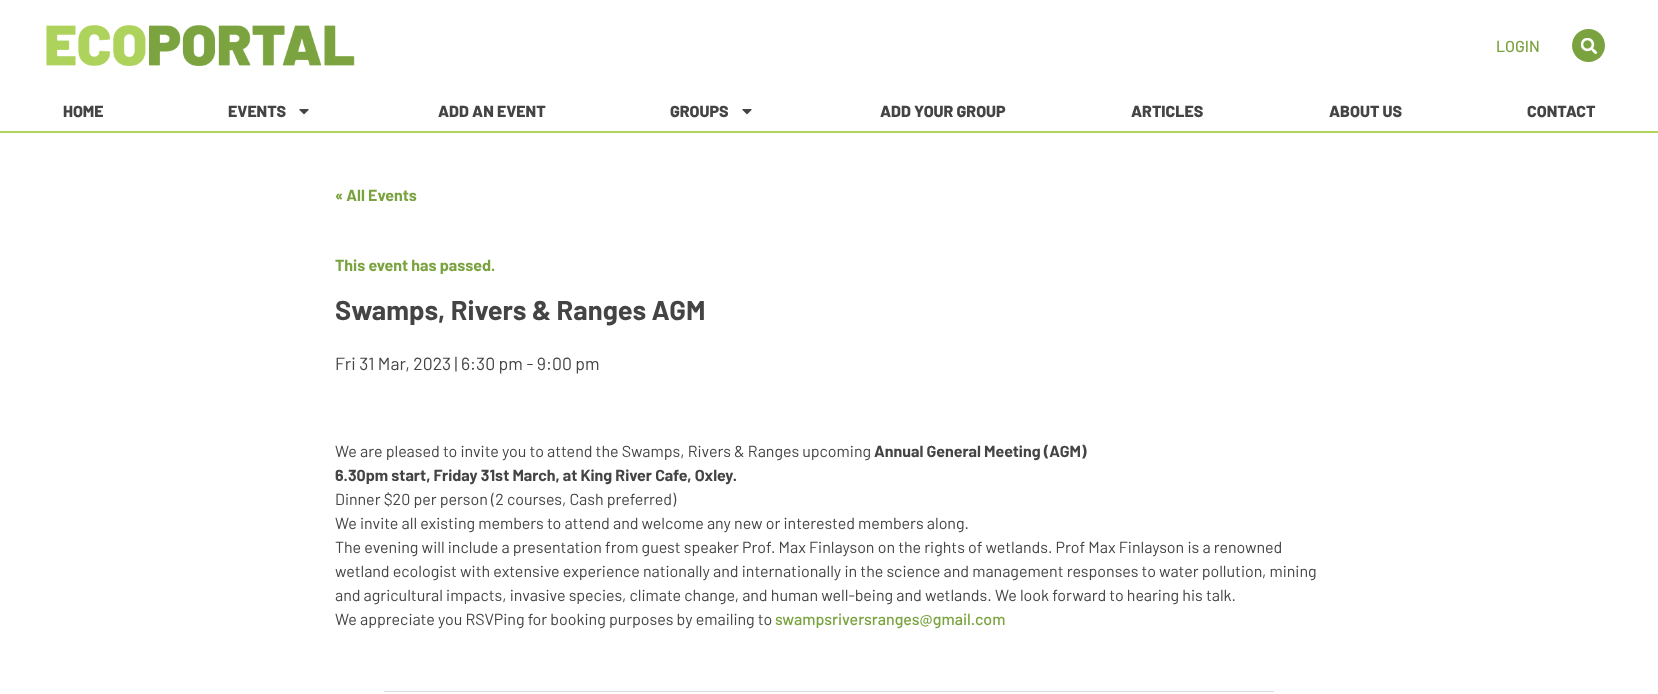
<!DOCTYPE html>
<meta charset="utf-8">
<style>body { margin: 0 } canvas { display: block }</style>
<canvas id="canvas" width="1658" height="694"></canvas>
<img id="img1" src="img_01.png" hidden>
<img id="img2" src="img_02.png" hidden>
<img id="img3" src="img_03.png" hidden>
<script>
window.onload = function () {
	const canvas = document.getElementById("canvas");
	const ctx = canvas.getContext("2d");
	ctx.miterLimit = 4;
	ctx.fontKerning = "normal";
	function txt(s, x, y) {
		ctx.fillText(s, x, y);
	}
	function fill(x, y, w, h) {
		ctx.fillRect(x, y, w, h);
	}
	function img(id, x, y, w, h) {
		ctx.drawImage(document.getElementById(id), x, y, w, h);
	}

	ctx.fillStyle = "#FFFFFF";
	fill(0, 0, 1658, 694);
	img("img1", 46, 25, 309, 41);
	ctx.fillStyle = "#7AA33F";
	ctx.beginPath();
	ctx.arc(1588.5, 45.5, 16.5, 0, Math.PI * 2);
	ctx.fill();
	img("img2", 1581, 38, 16, 16);
	ctx.fillStyle = "#AFD65B";
	fill(0, 131, 1658, 2);
	img("img3", 299, 109, 10, 6);
	img("img3", 742, 109, 10, 6);
	ctx.fillStyle = "#DBDBDC";
	fill(384, 691, 890, 1);
	ctx.font = "500 16px Barlow";
	ctx.fillStyle = "#7AA33F";
	txt("LOGIN", 1496, 52);
	ctx.font = "800 16px Barlow";
	ctx.fillStyle = "#444445";
	txt("HOME", 63, 117);
	txt("EVENTS", 228, 117);
	txt("ADD AN EVENT", 438, 117);
	txt("GROUPS", 670, 117);
	txt("ADD YOUR GROUP", 880, 117);
	txt("ARTICLES", 1131, 117);
	txt("ABOUT US", 1329, 117);
	txt("CONTACT", 1527, 117);
	ctx.font = "bold 16px Barlow";
	ctx.fillStyle = "#7AA33F";
	txt("« All Events", 335, 201);
	txt("This event has passed.", 335, 271);
	ctx.font = "bold 27.25px Barlow";
	ctx.fillStyle = "#444445";
	txt("Swamps, Rivers & Ranges AGM", 335, 320);
	ctx.font = "17.6px Barlow";
	txt("Fri 31 Mar, 2023 | 6:30 pm - 9:00 pm", 335, 370);
	ctx.font = "16px Barlow";
	txt("We are pleased to invite you to attend the Swamps, Rivers & Ranges upcoming", 335, 457);
	ctx.font = "bold 16px Barlow";
	txt("Annual General Meeting (AGM)", 874, 457);
	txt("6.30pm start, Friday 31st March, at King River Cafe, Oxley.", 335, 481);
	ctx.font = "16px Barlow";
	txt("Dinner $20 per person (2 courses, Cash preferred)", 335, 505);
	txt("We invite all existing members to attend and welcome any new or interested members along.", 335, 529);
	txt("The evening will include a presentation from guest speaker Prof. Max Finlayson on the rights of wetlands. Prof Max Finlayson is a renowned", 335, 553);
	txt("wetland ecologist with extensive experience nationally and internationally in the science and management responses to water pollution, mining", 335, 577);
	txt("and agricultural impacts, invasive species, climate change, and human well-being and wetlands. We look forward to hearing his talk.", 335, 601);
	txt("We appreciate you RSVPing for booking purposes by emailing to", 335, 625);
	ctx.font = "500 16px Barlow";
	ctx.fillStyle = "#7AA33F";
	txt("swampsriversranges@gmail.com", 775, 625);
};
</script>
